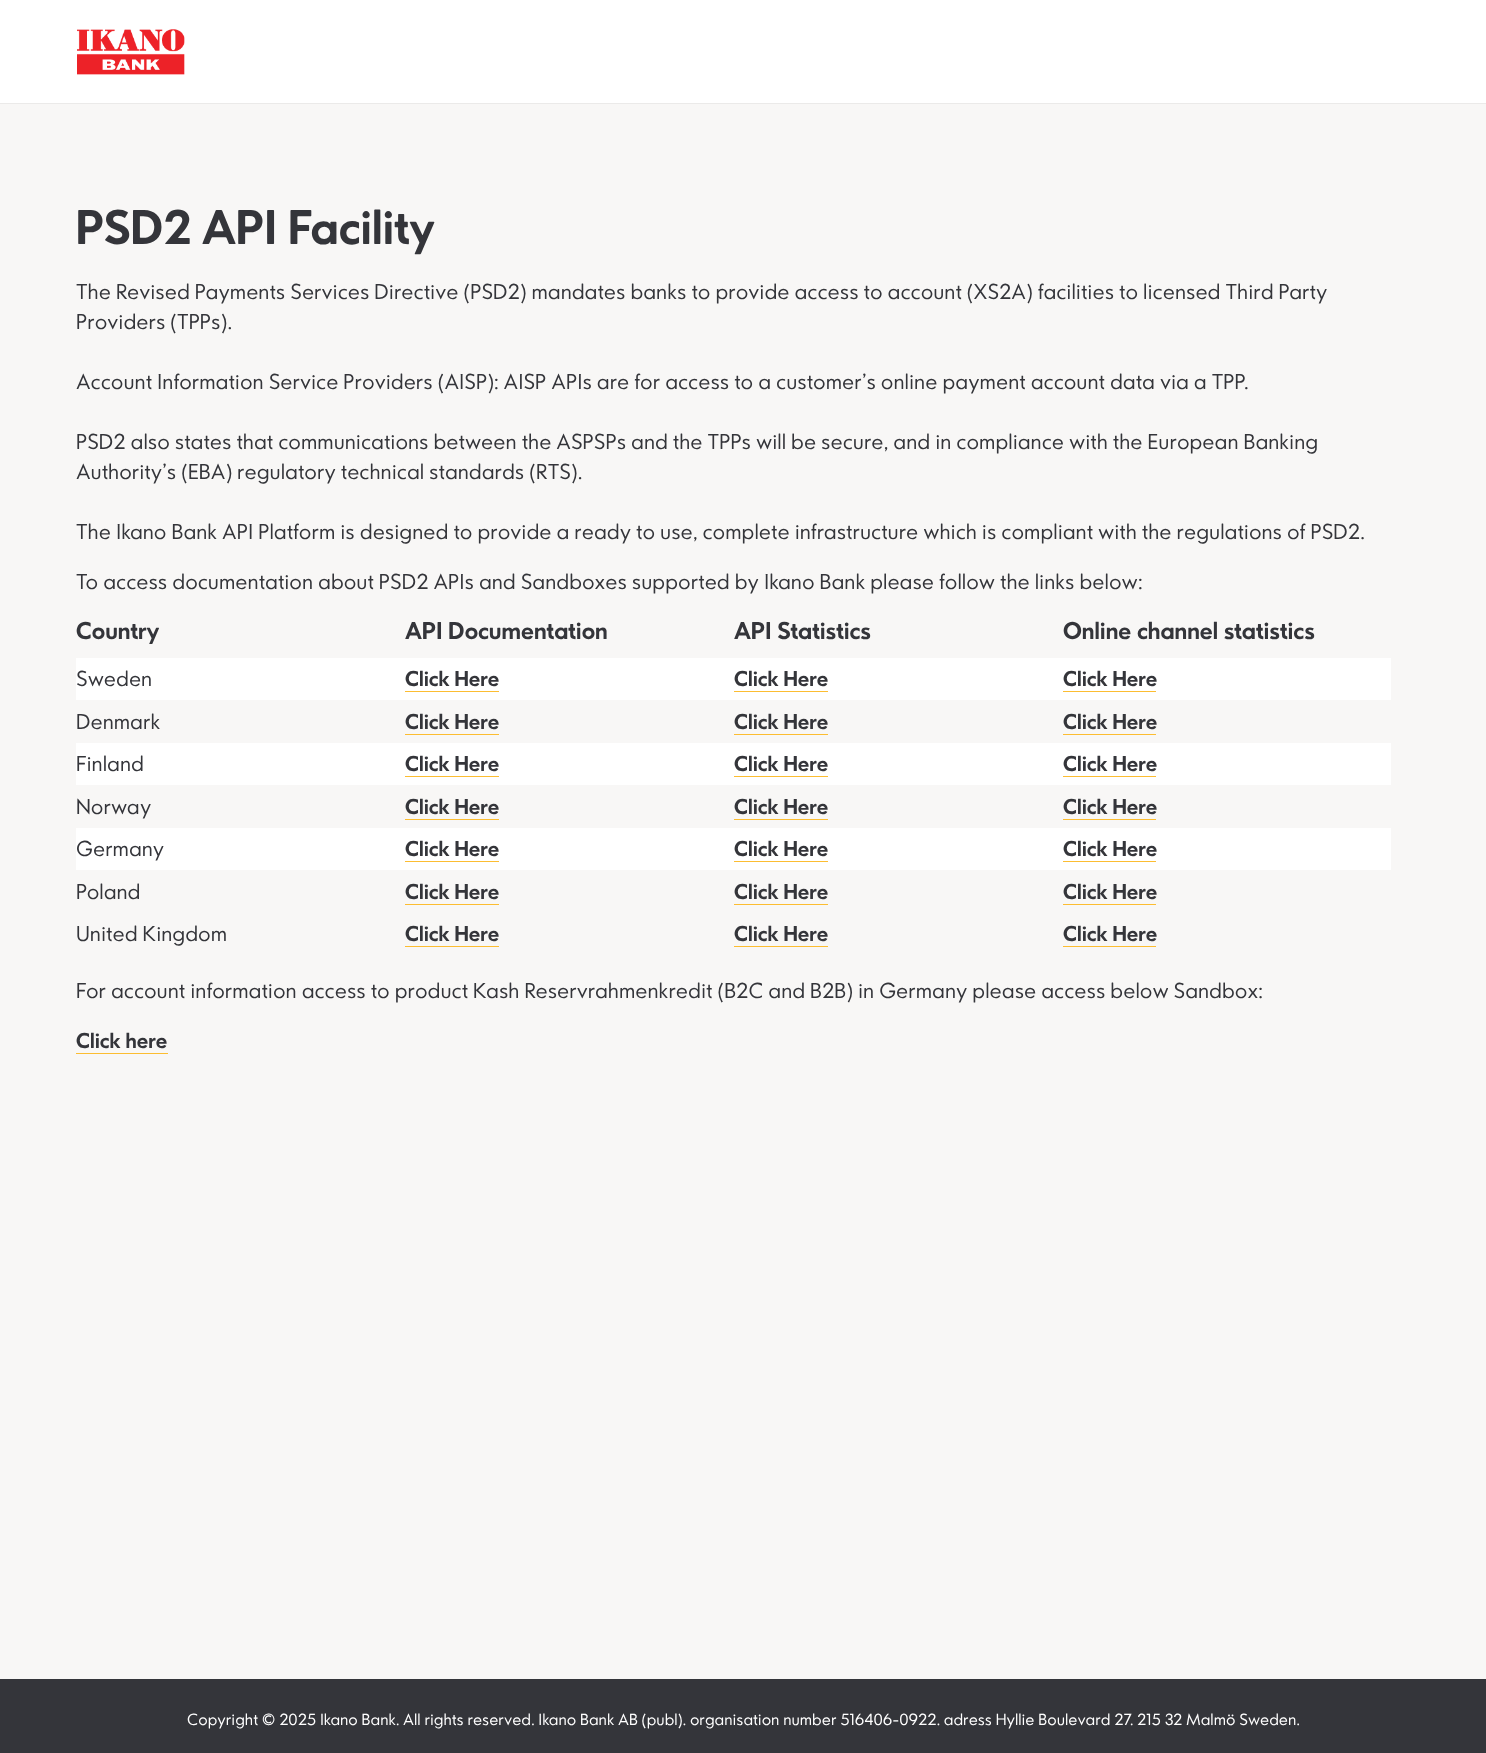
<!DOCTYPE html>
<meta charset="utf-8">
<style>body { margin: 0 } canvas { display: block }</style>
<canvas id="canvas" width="1486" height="1753"></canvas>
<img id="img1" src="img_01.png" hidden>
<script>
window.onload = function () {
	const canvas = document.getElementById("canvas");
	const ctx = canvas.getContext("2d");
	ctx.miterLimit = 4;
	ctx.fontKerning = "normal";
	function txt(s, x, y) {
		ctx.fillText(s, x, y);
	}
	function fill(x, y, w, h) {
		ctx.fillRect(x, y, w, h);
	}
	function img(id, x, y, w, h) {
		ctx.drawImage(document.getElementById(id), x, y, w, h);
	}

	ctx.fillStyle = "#F8F7F6";
	fill(0, 0, 1486, 1753);
	ctx.fillStyle = "#EBEAE9";
	fill(0, 103, 1486, 1);
	ctx.fillStyle = "#FFFFFF";
	fill(0, 0, 1486, 103);
	img("img1", 77, 29, 108, 46);
	fill(76, 658, 1315, 42);
	ctx.fillStyle = "#FCBD31";
	fill(405, 691, 94, 1);
	fill(734, 691, 94, 1);
	fill(1063, 691, 93, 1);
	fill(405, 734, 94, 1);
	fill(734, 734, 94, 1);
	fill(1063, 734, 93, 1);
	ctx.fillStyle = "#FFFFFF";
	fill(76, 743, 1315, 42);
	ctx.fillStyle = "#FCBD31";
	fill(405, 776, 94, 1);
	fill(734, 776, 94, 1);
	fill(1063, 776, 93, 1);
	fill(405, 819, 94, 1);
	fill(734, 819, 94, 1);
	fill(1063, 819, 93, 1);
	ctx.fillStyle = "#FFFFFF";
	fill(76, 828, 1315, 42);
	ctx.fillStyle = "#FCBD31";
	fill(405, 861, 94, 1);
	fill(734, 861, 94, 1);
	fill(1063, 861, 93, 1);
	fill(405, 904, 94, 1);
	fill(734, 904, 94, 1);
	fill(1063, 904, 93, 1);
	fill(405, 946, 94, 1);
	fill(734, 946, 94, 1);
	fill(1063, 946, 93, 1);
	fill(76, 1053, 92, 1);
	ctx.fillStyle = "#34353A";
	fill(0, 1679, 1486, 74);
	ctx.font = "bold 45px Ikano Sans";
	txt("PSD2 API Facility", 76, 244);
	ctx.font = "300 20px Ikano Sans";
	txt("The Revised Payments Services Directive (PSD2) mandates banks to provide access to account (XS2A) facilities to licensed Third Party", 76, 299);
	txt("Providers (TPPs).", 76, 329);
	txt("Account Information Service Providers (AISP): AISP APIs are for access to a customer's online payment account data via a TPP.", 76, 389);
	txt("PSD2 also states that communications between the ASPSPs and the TPPs will be secure, and in compliance with the European Banking", 76, 449);
	txt("Authority's (EBA) regulatory technical standards (RTS).", 76, 479);
	txt("The Ikano Bank API Platform is designed to provide a ready to use, complete infrastructure which is compliant with the regulations of PSD2.", 76, 539);
	txt("To access documentation about PSD2 APIs and Sandboxes supported by Ikano Bank please follow the links below:", 76, 589);
	ctx.font = "bold 22.5px Ikano Sans";
	txt("Country", 76, 639);
	txt("API Documentation", 405, 639);
	txt("API Statistics", 734, 639);
	txt("Online channel statistics", 1063, 639);
	ctx.font = "300 20px Ikano Sans";
	txt("Sweden", 76, 686);
	ctx.font = "bold 20px Ikano Sans";
	txt("Click Here", 405, 686);
	txt("Click Here", 734, 686);
	txt("Click Here", 1063, 686);
	ctx.font = "300 20px Ikano Sans";
	txt("Denmark", 76, 729);
	ctx.font = "bold 20px Ikano Sans";
	txt("Click Here", 405, 729);
	txt("Click Here", 734, 729);
	txt("Click Here", 1063, 729);
	ctx.font = "300 20px Ikano Sans";
	txt("Finland", 76, 771);
	ctx.font = "bold 20px Ikano Sans";
	txt("Click Here", 405, 771);
	txt("Click Here", 734, 771);
	txt("Click Here", 1063, 771);
	ctx.font = "300 20px Ikano Sans";
	txt("Norway", 76, 814);
	ctx.font = "bold 20px Ikano Sans";
	txt("Click Here", 405, 814);
	txt("Click Here", 734, 814);
	txt("Click Here", 1063, 814);
	ctx.font = "300 20px Ikano Sans";
	txt("Germany", 76, 856);
	ctx.font = "bold 20px Ikano Sans";
	txt("Click Here", 405, 856);
	txt("Click Here", 734, 856);
	txt("Click Here", 1063, 856);
	ctx.font = "300 20px Ikano Sans";
	txt("Poland", 76, 899);
	ctx.font = "bold 20px Ikano Sans";
	txt("Click Here", 405, 899);
	txt("Click Here", 734, 899);
	txt("Click Here", 1063, 899);
	ctx.font = "300 20px Ikano Sans";
	txt("United Kingdom", 76, 941);
	ctx.font = "bold 20px Ikano Sans";
	txt("Click Here", 405, 941);
	txt("Click Here", 734, 941);
	txt("Click Here", 1063, 941);
	ctx.font = "300 20px Ikano Sans";
	txt("For account information access to product Kash Reservrahmenkredit (B2C and B2B) in Germany please access below Sandbox:", 76, 998);
	ctx.font = "bold 20px Ikano Sans";
	txt("Click here", 76, 1048);
	ctx.font = "300 15px Ikano Sans";
	ctx.fillStyle = "#FFFFFF";
	txt("Copyright © 2025 Ikano Bank. All rights reserved. Ikano Bank AB (publ). organisation number 516406-0922. adress Hyllie Boulevard 27. 215 32 Malmö Sweden.", 187, 1725);
};
</script>
